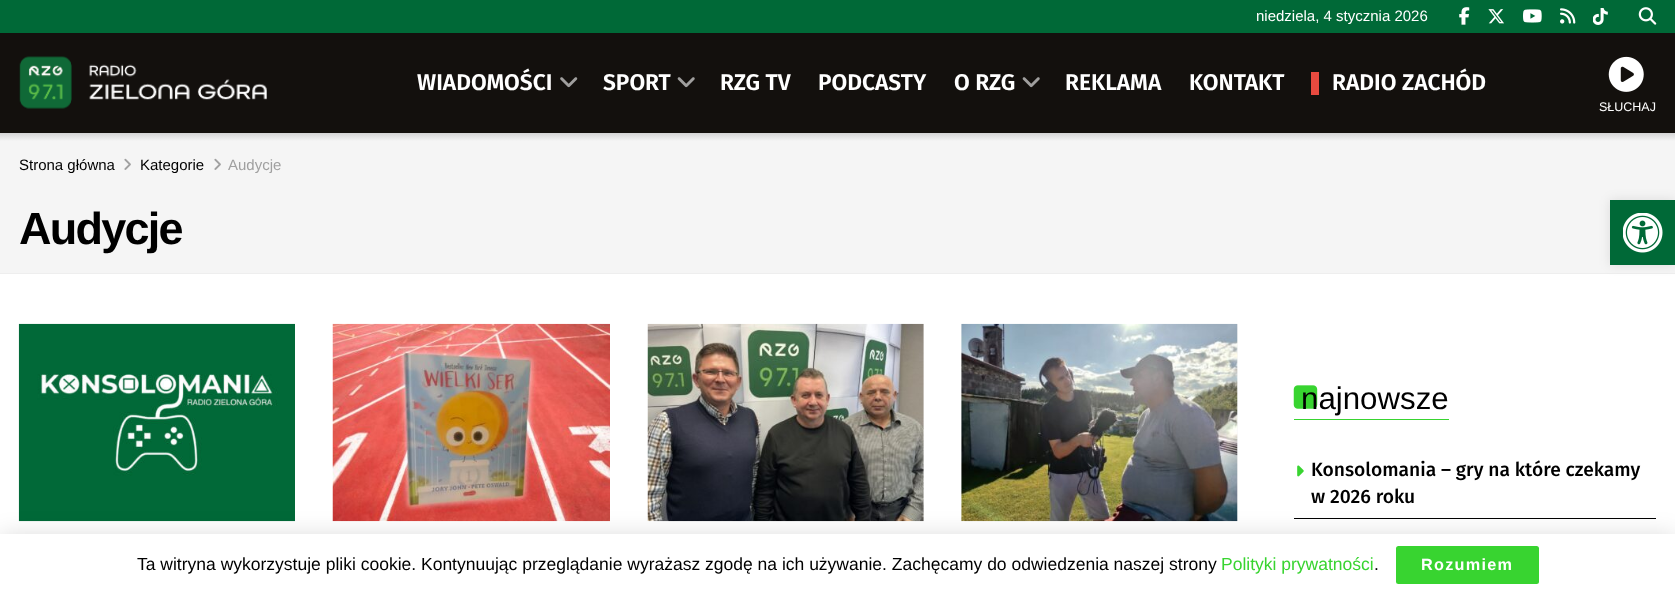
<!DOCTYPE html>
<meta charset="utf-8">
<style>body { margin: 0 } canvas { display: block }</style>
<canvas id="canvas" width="1675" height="596"></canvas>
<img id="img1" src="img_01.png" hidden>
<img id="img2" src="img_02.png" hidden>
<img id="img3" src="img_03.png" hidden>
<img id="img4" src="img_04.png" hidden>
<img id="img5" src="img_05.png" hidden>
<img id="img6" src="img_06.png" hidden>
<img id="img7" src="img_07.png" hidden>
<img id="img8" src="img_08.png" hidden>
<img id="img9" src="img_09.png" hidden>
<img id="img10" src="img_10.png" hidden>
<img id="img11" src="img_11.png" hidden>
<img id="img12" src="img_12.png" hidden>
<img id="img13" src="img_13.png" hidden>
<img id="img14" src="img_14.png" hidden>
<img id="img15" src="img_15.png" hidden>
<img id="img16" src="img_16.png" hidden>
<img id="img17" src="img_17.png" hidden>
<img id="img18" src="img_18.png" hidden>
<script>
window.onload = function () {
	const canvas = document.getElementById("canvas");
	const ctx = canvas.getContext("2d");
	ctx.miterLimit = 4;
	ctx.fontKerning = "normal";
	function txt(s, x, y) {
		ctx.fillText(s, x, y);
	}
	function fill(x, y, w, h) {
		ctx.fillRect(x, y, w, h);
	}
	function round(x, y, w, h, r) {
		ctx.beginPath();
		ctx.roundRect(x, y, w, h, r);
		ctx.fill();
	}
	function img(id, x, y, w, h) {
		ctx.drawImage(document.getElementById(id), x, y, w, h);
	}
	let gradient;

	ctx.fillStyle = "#FFFFFF";
	fill(0, 0, 1675, 596);
	ctx.fillStyle = "#006937";
	fill(0, 0, 1675, 33);
	img("img1", 1459, 7, 11, 18);
	img("img2", 1488, 9, 16, 15);
	img("img3", 1523, 9, 19, 14);
	img("img4", 1560, 8, 16, 16);
	img("img5", 1593, 8, 15, 17);
	img("img6", 1638, 7, 19, 18);
	ctx.fillStyle = "#13100D";
	fill(0, 33, 1675, 100);
	img("img7", 19, 56, 248, 53);
	img("img8", 560, 77, 18, 11);
	img("img9", 677, 77, 18, 11);
	img("img9", 1022, 77, 18, 11);
	ctx.fillStyle = "#E84A3F";
	fill(1311, 72, 8, 23);
	img("img10", 1608, 56, 36, 36);
	gradient = ctx.createLinearGradient(838, 132, 838, 141);
	gradient.addColorStop(0, "#D0D0D0");
	gradient.addColorStop(1, "#F5F5F5");
	ctx.fillStyle = gradient;
	fill(0, 133, 1675, 8);
	ctx.fillStyle = "#F5F5F5";
	fill(0, 141, 1675, 132);
	ctx.fillStyle = "#EEEEEE";
	fill(0, 273, 1675, 1);
	img("img11", 124, 158, 7, 12);
	img("img11", 214, 158, 7, 12);
	img("img12", 18, 323, 277, 199);
	img("img13", 332, 323, 278, 199);
	ctx.fillStyle = "#F7F7F7";
	fill(923, 324, 1, 197);
	img("img14", 647, 323, 277, 199);
	fill(961, 324, 277, 197);
	img("img15", 961, 323, 277, 199);
	ctx.fillStyle = "#38D430";
	fill(1294, 419, 155, 1);
	img("img16", 1293, 385, 25, 24);
	ctx.fillStyle = "#000000";
	fill(1294, 518, 362, 1);
	img("img17", 1297, 465, 7, 12);
	ctx.fillStyle = "rgba(0, 0, 0, 0.1)";
	ctx.filter = "blur(6px)";
	ctx.beginPath();
	ctx.rect(1610, 200, 65, 65);
	ctx.fill();
	ctx.filter = "none";
	ctx.fillStyle = "#006937";
	fill(1610, 200, 65, 65);
	img("img18", 1623, 213, 40, 40);
	ctx.fillStyle = "rgba(0, 0, 0, 0.15)";
	ctx.filter = "blur(12.5px)";
	ctx.beginPath();
	ctx.rect(0, 536, 1675, 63);
	ctx.fill();
	ctx.filter = "none";
	ctx.fillStyle = "#FFFFFF";
	fill(0, 534, 1675, 62);
	ctx.fillStyle = "#38D430";
	round(1396, 546, 143, 38, 2.5);
	ctx.font = "15px Liberation Sans";
	ctx.fillStyle = "#FFFFFF";
	txt("niedziela, 4 stycznia 2026", 1256, 21);
	ctx.font = "600 22.75px Fira Sans";
	txt("WIADOMOŚCI", 417, 90);
	txt("SPORT", 603, 90);
	txt("RZG TV", 720, 90);
	txt("PODCASTY", 818, 90);
	txt("O RZG", 954, 90);
	txt("REKLAMA", 1065, 90);
	txt("KONTAKT", 1189, 90);
	txt("RADIO ZACHÓD", 1332, 90);
	ctx.font = "12.5px Liberation Sans";
	txt("SŁUCHAJ", 1599, 111);
	ctx.font = "15px Liberation Sans";
	ctx.fillStyle = "#000000";
	txt("Strona główna", 19, 170);
	txt("Kategorie", 140, 170);
	ctx.fillStyle = "#A0A0A0";
	txt("Audycje", 228, 170);
	ctx.letterSpacing = "-1.75px";
	ctx.font = "bold 45px Liberation Sans";
	ctx.fillStyle = "#000000";
	txt("Audycje", 19, 244);
	ctx.letterSpacing = "0px";
	ctx.font = "31.25px Liberation Sans";
	txt("najnowsze", 1301, 409);
	ctx.font = "500 19.25px Fira Sans";
	txt("Konsolomania – gry na które czekamy", 1311, 476);
	txt("w 2026 roku", 1311, 503);
	ctx.font = "17.5px Liberation Sans";
	txt("Ta witryna wykorzystuje pliki cookie. Kontynuując przeglądanie wyrażasz zgodę na ich używanie. Zachęcamy do odwiedzenia naszej strony", 137, 570);
	ctx.fillStyle = "#38D430";
	txt("Polityki prywatności", 1221, 570);
	ctx.fillStyle = "#000000";
	txt(".", 1374, 570);
	ctx.letterSpacing = "1.25px";
	ctx.font = "bold 16.25px Liberation Sans";
	ctx.fillStyle = "#FFFFFF";
	txt("Rozumiem", 1421, 570);
};
</script>
